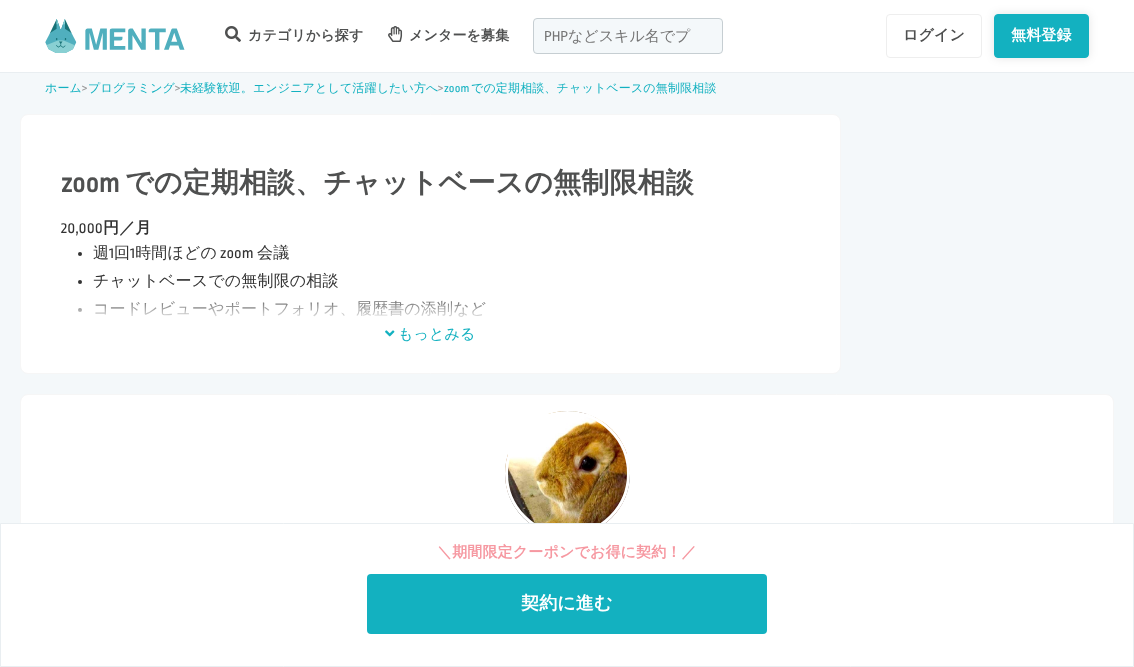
<!DOCTYPE html>
<meta charset="utf-8">
<style>body { margin: 0 } canvas { display: block }</style>
<canvas id="canvas" width="1134" height="667"></canvas>
<img id="img1" src="img_01.png" hidden>
<img id="img2" src="img_02.png" hidden>
<img id="img3" src="img_03.png" hidden>
<img id="img4" src="img_04.png" hidden>
<img id="img5" src="img_05.png" hidden>
<script>
window.onload = function () {
	const canvas = document.getElementById("canvas");
	const ctx = canvas.getContext("2d");
	ctx.miterLimit = 4;
	ctx.fontKerning = "normal";
	function txt(s, x, y) {
		ctx.fillText(s, x, y);
	}
	function fill(x, y, w, h) {
		ctx.fillRect(x, y, w, h);
	}
	function round(x, y, w, h, r) {
		ctx.beginPath();
		ctx.roundRect(x, y, w, h, r);
		ctx.fill();
	}
	function img(id, x, y, w, h) {
		ctx.drawImage(document.getElementById(id), x, y, w, h);
	}
	let gradient;

	ctx.fillStyle = "#F4F8FA";
	fill(0, 0, 1134, 667);
	ctx.fillStyle = "#FFFFFF";
	fill(0, 0, 1134, 72);
	ctx.fillStyle = "#E9EEF1";
	fill(0, 72, 1134, 1);
	img("img1", 45, 19, 140, 34);
	img("img2", 225, 26, 16, 16);
	img("img3", 388, 26, 15, 16);
	ctx.fillStyle = "#F4F8FA";
	ctx.beginPath();
	ctx.roundRect(533.5, 18.5, 189, 35, 3.5);
	ctx.fill();
	ctx.strokeStyle = "#C6CED2";
	ctx.stroke();
	ctx.beginPath();
	ctx.roundRect(886.5, 14.5, 95, 43, 3.5);
	ctx.strokeStyle = "#EEEEEE";
	ctx.stroke();
	ctx.fillStyle = "rgba(0, 0, 0, 0.1)";
	ctx.filter = "blur(5px)";
	ctx.beginPath();
	ctx.roundRect(994, 14, 95, 44, 4);
	ctx.fill();
	ctx.filter = "none";
	ctx.fillStyle = "#13B1C0";
	ctx.beginPath();
	ctx.roundRect(994.5, 14.5, 94, 43, 3.5);
	ctx.fill();
	ctx.strokeStyle = "#13B1C0";
	ctx.stroke();
	ctx.fillStyle = "#FFFFFF";
	ctx.beginPath();
	ctx.roundRect(20.5, 114.5, 820, 259, 7.5);
	ctx.fill();
	ctx.strokeStyle = "#F6F6F6";
	ctx.stroke();
	ctx.fillStyle = "#333333";
	ctx.beginPath();
	ctx.arc(80, 254, 2, 0, Math.PI * 2);
	ctx.fill();
	ctx.beginPath();
	ctx.arc(80, 282, 2, 0, Math.PI * 2);
	ctx.fill();
	ctx.beginPath();
	ctx.arc(80, 310, 2, 0, Math.PI * 2);
	ctx.fill();
	img("img4", 385, 330, 10, 7);
	ctx.fillStyle = "#FFFFFF";
	ctx.beginPath();
	ctx.roundRect(20.5, 394.5, 1093, 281, 7.5);
	ctx.fill();
	ctx.stroke();
	img("img5", 505, 411, 125, 112);
	ctx.beginPath();
	ctx.arc(567.5, 473.5, 61, 0, Math.PI * 2);
	ctx.strokeStyle = "#FFFFFF";
	ctx.lineWidth = 3;
	ctx.stroke();
	ctx.beginPath();
	ctx.rect(0.5, 523.5, 1133, 143);
	ctx.fill();
	ctx.strokeStyle = "#E9EEF1";
	ctx.lineWidth = 1;
	ctx.stroke();
	ctx.fillStyle = "#13B1C0";
	round(367, 574, 400, 60, 4);
	ctx.letterSpacing = "0.15px";
	ctx.font = "bold 14px WenQuanYi Zen Hei";
	ctx.fillStyle = "#4F5050";
	txt("カテゴリから探す", 248, 40);
	txt("メンターを募集", 409, 40);
	ctx.letterSpacing = "0px";
	ctx.font = "15px Ropa Sans";
	ctx.fillStyle = "#757575";
	txt("PHP", 544, 41);
	ctx.font = "500 15px WenQuanYi Zen Hei";
	txt("などスキル名でプ", 568, 41);
	ctx.letterSpacing = "0.15px";
	ctx.font = "bold 15px WenQuanYi Zen Hei";
	ctx.fillStyle = "#4F5050";
	txt("ログイン", 903, 40);
	ctx.fillStyle = "#FFFFFF";
	txt("無料登録", 1011, 40);
	ctx.font = "500 12px WenQuanYi Zen Hei";
	ctx.fillStyle = "#13B1C0";
	txt("ホーム", 45, 92);
	ctx.font = "13px Ropa Sans";
	ctx.fillStyle = "#999999";
	txt(">", 82, 92);
	ctx.font = "500 12px WenQuanYi Zen Hei";
	ctx.fillStyle = "#13B1C0";
	txt("プログラミング", 88, 92);
	ctx.font = "13px Ropa Sans";
	ctx.fillStyle = "#999999";
	txt(">", 175, 92);
	ctx.font = "500 12px WenQuanYi Zen Hei";
	ctx.fillStyle = "#13B1C0";
	txt("未経験歓迎。エンジニアとして活躍したい方へ", 180, 92);
	ctx.font = "13px Ropa Sans";
	ctx.fillStyle = "#999999";
	txt(">", 438, 92);
	ctx.font = "12px Ropa Sans";
	ctx.fillStyle = "#13B1C0";
	txt("zoom", 444, 92);
	ctx.font = "500 12px WenQuanYi Zen Hei";
	txt("での定期相談、チャットベースの無制限相談", 471, 92);
	ctx.font = "bold 28px Ropa Sans";
	ctx.fillStyle = "#4F5050";
	txt("zoom", 61, 192);
	ctx.font = "bold 28px WenQuanYi Zen Hei";
	txt("での定期相談、チャットベースの無制限相談", 125, 192);
	ctx.font = "16px Ropa Sans";
	ctx.fillStyle = "#333333";
	txt("20,000", 61, 233);
	ctx.font = "bold 16px WenQuanYi Zen Hei";
	txt("円／月", 103, 233);
	ctx.font = "500 16px WenQuanYi Zen Hei";
	txt("週 回 時間ほどの", 93, 258);
	txt("会議", 257, 258);
	ctx.font = "16px Ropa Sans";
	txt("1", 109, 258);
	txt("1", 130, 258);
	txt("zoom", 220, 258);
	ctx.font = "500 16px WenQuanYi Zen Hei";
	txt("チャットベースでの無制限の相談", 93, 286);
	txt("コードレビューやポートフォリオ、履歴書の添削など", 93, 314);
	gradient = ctx.createLinearGradient(431, 292, 431, 322);
	gradient.addColorStop(0, "rgba(255, 255, 255, 0)");
	gradient.addColorStop(1, "#FFFFFF");
	ctx.fillStyle = gradient;
	fill(78, 300, 408, 17);
	ctx.font = "500 15px WenQuanYi Zen Hei";
	ctx.fillStyle = "#13B1C0";
	txt("もっとみる", 398, 339);
	ctx.font = "bold 15px WenQuanYi Zen Hei";
	ctx.fillStyle = "#F698A1";
	txt("＼期間限定クーポンでお得に契約！／", 437, 557);
	ctx.font = "bold 18px WenQuanYi Zen Hei";
	ctx.fillStyle = "#FFFFFF";
	txt("契約に進む", 521, 609);
};
</script>
